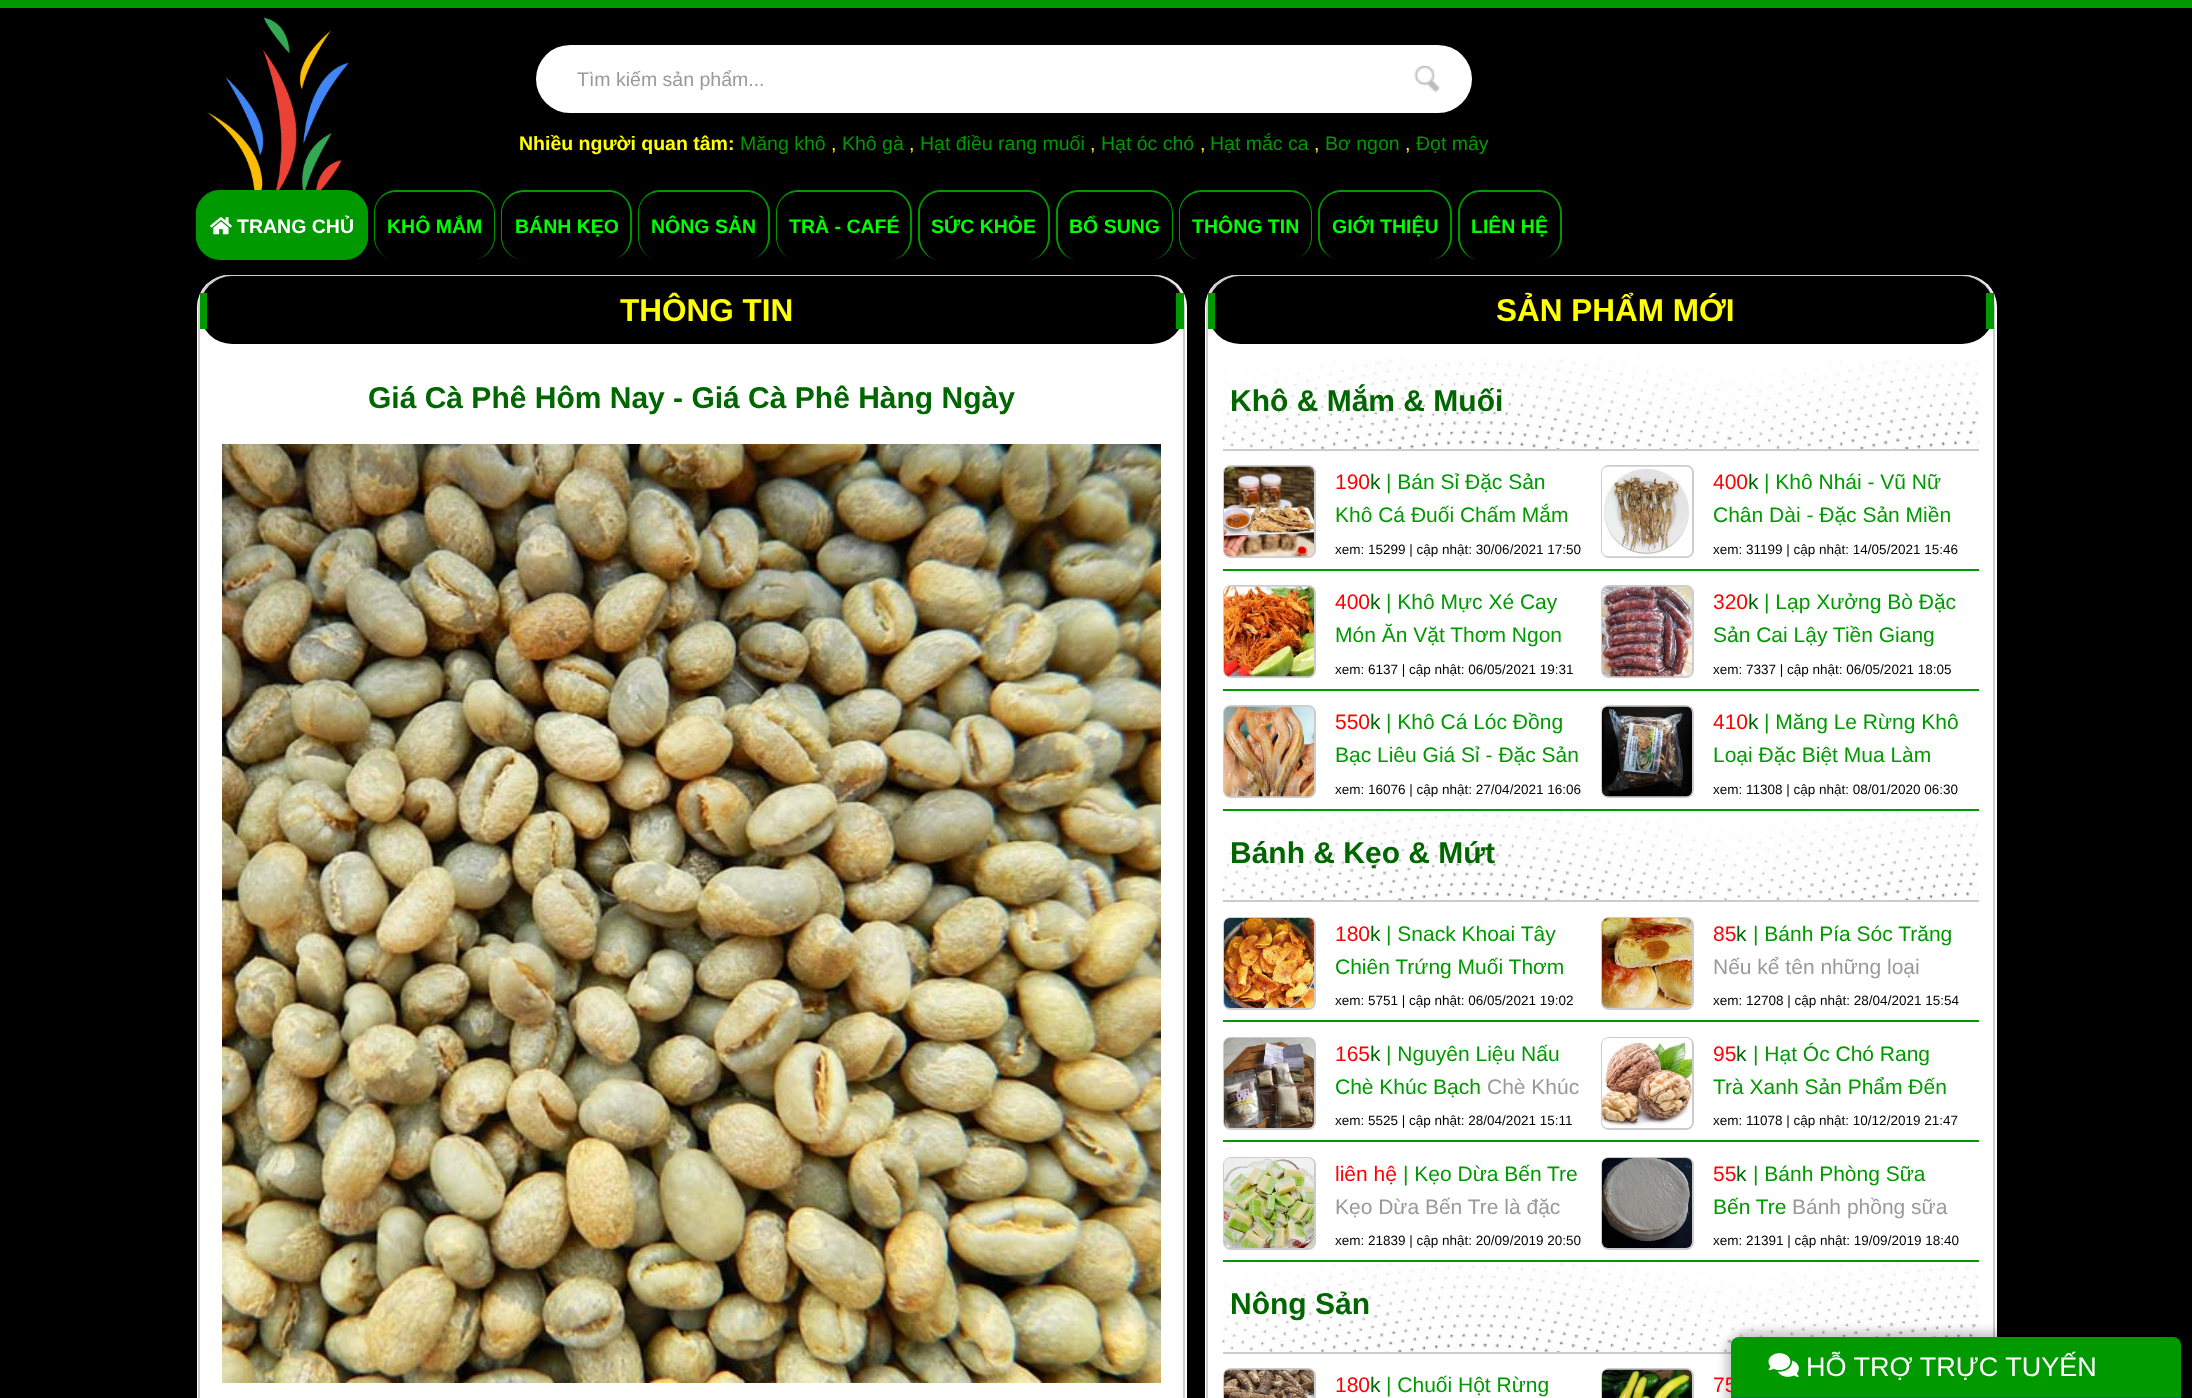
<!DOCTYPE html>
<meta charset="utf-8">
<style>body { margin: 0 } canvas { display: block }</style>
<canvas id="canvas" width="2192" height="1398"></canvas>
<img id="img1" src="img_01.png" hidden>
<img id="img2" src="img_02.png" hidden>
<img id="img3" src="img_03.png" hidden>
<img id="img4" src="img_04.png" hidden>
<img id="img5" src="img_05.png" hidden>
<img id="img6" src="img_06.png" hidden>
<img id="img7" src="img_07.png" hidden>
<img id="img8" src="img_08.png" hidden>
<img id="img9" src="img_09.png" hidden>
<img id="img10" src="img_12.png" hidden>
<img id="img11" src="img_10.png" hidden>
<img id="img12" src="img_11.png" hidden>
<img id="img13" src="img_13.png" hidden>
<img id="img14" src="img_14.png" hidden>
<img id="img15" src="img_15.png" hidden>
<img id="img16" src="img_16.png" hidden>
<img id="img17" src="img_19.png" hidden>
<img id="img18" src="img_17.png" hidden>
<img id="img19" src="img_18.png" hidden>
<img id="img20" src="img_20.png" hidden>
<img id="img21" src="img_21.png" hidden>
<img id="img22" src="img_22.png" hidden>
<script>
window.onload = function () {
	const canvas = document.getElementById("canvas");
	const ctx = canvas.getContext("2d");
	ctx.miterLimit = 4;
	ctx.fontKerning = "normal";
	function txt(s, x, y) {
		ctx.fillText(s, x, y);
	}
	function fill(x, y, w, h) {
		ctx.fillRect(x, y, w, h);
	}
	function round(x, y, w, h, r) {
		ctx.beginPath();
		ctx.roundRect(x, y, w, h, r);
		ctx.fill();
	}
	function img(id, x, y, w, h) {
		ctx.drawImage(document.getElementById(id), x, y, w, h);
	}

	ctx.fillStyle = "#000000";
	fill(0, 0, 2192, 1398);
	ctx.fillStyle = "#009900";
	fill(0, 0, 2192, 8);
	img("img1", 207, 17, 142, 173);
	ctx.fillStyle = "#FFFFFF";
	round(536, 45, 936, 68, 34);
	img("img2", 1414, 66, 26, 26);
	ctx.fillStyle = "#009900";
	round(197, 191, 171, 69, 23);
	ctx.beginPath();
	ctx.moveTo(219, 190);
	ctx.lineTo(345, 190);
	ctx.bezierCurveTo(357, 190, 368, 201, 368, 213);
	ctx.lineTo(368, 237);
	ctx.bezierCurveTo(368, 249, 357, 260, 345, 260);
	ctx.lineTo(219, 260);
	ctx.bezierCurveTo(207, 260, 196, 249, 196, 237);
	ctx.lineTo(196, 213);
	ctx.bezierCurveTo(196, 201, 207, 190, 219, 190);
	ctx.closePath();
	ctx.moveTo(219, 192);
	ctx.lineTo(345, 192);
	ctx.bezierCurveTo(357, 192, 366, 201, 366, 213);
	ctx.lineTo(366, 237);
	ctx.bezierCurveTo(366, 249, 357, 260, 345, 260);
	ctx.lineTo(219, 260);
	ctx.bezierCurveTo(207, 260, 198, 249, 198, 237);
	ctx.lineTo(198, 213);
	ctx.bezierCurveTo(198, 201, 207, 192, 219, 192);
	ctx.closePath();
	ctx.fill("evenodd");
	img("img3", 210, 217, 22, 18);
	ctx.beginPath();
	ctx.moveTo(396, 190);
	ctx.lineTo(472, 190);
	ctx.bezierCurveTo(485, 190, 495, 201, 495, 213);
	ctx.lineTo(495, 237);
	ctx.bezierCurveTo(495, 249, 485, 260, 472, 260);
	ctx.lineTo(396, 260);
	ctx.bezierCurveTo(384, 260, 374, 249, 374, 237);
	ctx.lineTo(374, 213);
	ctx.bezierCurveTo(374, 201, 384, 190, 396, 190);
	ctx.closePath();
	ctx.moveTo(396, 192);
	ctx.lineTo(472, 192);
	ctx.bezierCurveTo(484, 192, 494, 201, 494, 213);
	ctx.lineTo(494, 237);
	ctx.bezierCurveTo(494, 249, 484, 260, 472, 260);
	ctx.lineTo(396, 260);
	ctx.bezierCurveTo(384, 260, 375, 249, 375, 237);
	ctx.lineTo(375, 213);
	ctx.bezierCurveTo(375, 201, 384, 192, 396, 192);
	ctx.closePath();
	ctx.fill("evenodd");
	ctx.beginPath();
	ctx.moveTo(524, 190);
	ctx.lineTo(609, 190);
	ctx.bezierCurveTo(621, 190, 632, 201, 632, 213);
	ctx.lineTo(632, 237);
	ctx.bezierCurveTo(632, 249, 621, 260, 609, 260);
	ctx.lineTo(524, 260);
	ctx.bezierCurveTo(511, 260, 501, 249, 501, 237);
	ctx.lineTo(501, 213);
	ctx.bezierCurveTo(501, 201, 511, 190, 524, 190);
	ctx.closePath();
	ctx.moveTo(524, 192);
	ctx.lineTo(609, 192);
	ctx.bezierCurveTo(621, 192, 630, 201, 630, 213);
	ctx.lineTo(630, 237);
	ctx.bezierCurveTo(630, 249, 621, 260, 609, 260);
	ctx.lineTo(524, 260);
	ctx.bezierCurveTo(512, 260, 502, 249, 502, 237);
	ctx.lineTo(502, 213);
	ctx.bezierCurveTo(502, 201, 512, 192, 524, 192);
	ctx.closePath();
	ctx.fill("evenodd");
	ctx.beginPath();
	ctx.moveTo(660, 190);
	ctx.lineTo(747, 190);
	ctx.bezierCurveTo(759, 190, 770, 201, 770, 213);
	ctx.lineTo(770, 237);
	ctx.bezierCurveTo(770, 249, 759, 260, 747, 260);
	ctx.lineTo(660, 260);
	ctx.bezierCurveTo(648, 260, 638, 249, 638, 237);
	ctx.lineTo(638, 213);
	ctx.bezierCurveTo(638, 201, 648, 190, 660, 190);
	ctx.closePath();
	ctx.moveTo(660, 192);
	ctx.lineTo(747, 192);
	ctx.bezierCurveTo(759, 192, 768, 201, 768, 213);
	ctx.lineTo(768, 237);
	ctx.bezierCurveTo(768, 249, 759, 260, 747, 260);
	ctx.lineTo(660, 260);
	ctx.bezierCurveTo(648, 260, 639, 249, 639, 237);
	ctx.lineTo(639, 213);
	ctx.bezierCurveTo(639, 201, 648, 192, 660, 192);
	ctx.closePath();
	ctx.fill("evenodd");
	ctx.beginPath();
	ctx.moveTo(798, 190);
	ctx.lineTo(890, 190);
	ctx.bezierCurveTo(902, 190, 912, 201, 912, 213);
	ctx.lineTo(912, 237);
	ctx.bezierCurveTo(912, 249, 902, 260, 890, 260);
	ctx.lineTo(798, 260);
	ctx.bezierCurveTo(786, 260, 776, 249, 776, 237);
	ctx.lineTo(776, 213);
	ctx.bezierCurveTo(776, 201, 786, 190, 798, 190);
	ctx.closePath();
	ctx.moveTo(798, 192);
	ctx.lineTo(890, 192);
	ctx.bezierCurveTo(901, 192, 910, 201, 910, 213);
	ctx.lineTo(910, 237);
	ctx.bezierCurveTo(910, 249, 901, 260, 890, 260);
	ctx.lineTo(798, 260);
	ctx.bezierCurveTo(786, 260, 777, 249, 777, 237);
	ctx.lineTo(777, 213);
	ctx.bezierCurveTo(777, 201, 786, 192, 798, 192);
	ctx.closePath();
	ctx.fill("evenodd");
	ctx.beginPath();
	ctx.moveTo(940, 190);
	ctx.lineTo(1028, 190);
	ctx.bezierCurveTo(1040, 190, 1050, 201, 1050, 213);
	ctx.lineTo(1050, 237);
	ctx.bezierCurveTo(1050, 249, 1040, 260, 1028, 260);
	ctx.lineTo(940, 260);
	ctx.bezierCurveTo(928, 260, 918, 249, 918, 237);
	ctx.lineTo(918, 213);
	ctx.bezierCurveTo(918, 201, 928, 190, 940, 190);
	ctx.closePath();
	ctx.moveTo(940, 192);
	ctx.lineTo(1028, 192);
	ctx.bezierCurveTo(1039, 192, 1048, 201, 1048, 213);
	ctx.lineTo(1048, 237);
	ctx.bezierCurveTo(1048, 249, 1039, 260, 1028, 260);
	ctx.lineTo(940, 260);
	ctx.bezierCurveTo(929, 260, 920, 249, 920, 237);
	ctx.lineTo(920, 213);
	ctx.bezierCurveTo(920, 201, 929, 192, 940, 192);
	ctx.closePath();
	ctx.fill("evenodd");
	ctx.beginPath();
	ctx.moveTo(1078, 190);
	ctx.lineTo(1150, 190);
	ctx.bezierCurveTo(1163, 190, 1173, 201, 1173, 213);
	ctx.lineTo(1173, 237);
	ctx.bezierCurveTo(1173, 249, 1163, 260, 1150, 260);
	ctx.lineTo(1078, 260);
	ctx.bezierCurveTo(1066, 260, 1056, 249, 1056, 237);
	ctx.lineTo(1056, 213);
	ctx.bezierCurveTo(1056, 201, 1066, 190, 1078, 190);
	ctx.closePath();
	ctx.moveTo(1078, 192);
	ctx.lineTo(1150, 192);
	ctx.bezierCurveTo(1162, 192, 1172, 201, 1172, 213);
	ctx.lineTo(1172, 237);
	ctx.bezierCurveTo(1172, 249, 1162, 260, 1150, 260);
	ctx.lineTo(1078, 260);
	ctx.bezierCurveTo(1067, 260, 1058, 249, 1058, 237);
	ctx.lineTo(1058, 213);
	ctx.bezierCurveTo(1058, 201, 1067, 192, 1078, 192);
	ctx.closePath();
	ctx.fill("evenodd");
	ctx.beginPath();
	ctx.moveTo(1202, 190);
	ctx.lineTo(1290, 190);
	ctx.bezierCurveTo(1302, 190, 1312, 201, 1312, 213);
	ctx.lineTo(1312, 237);
	ctx.bezierCurveTo(1312, 249, 1302, 260, 1290, 260);
	ctx.lineTo(1202, 260);
	ctx.bezierCurveTo(1189, 260, 1179, 249, 1179, 237);
	ctx.lineTo(1179, 213);
	ctx.bezierCurveTo(1179, 201, 1189, 190, 1202, 190);
	ctx.closePath();
	ctx.moveTo(1202, 192);
	ctx.lineTo(1290, 192);
	ctx.bezierCurveTo(1302, 192, 1311, 201, 1311, 213);
	ctx.lineTo(1311, 237);
	ctx.bezierCurveTo(1311, 249, 1302, 260, 1290, 260);
	ctx.lineTo(1202, 260);
	ctx.bezierCurveTo(1190, 260, 1180, 249, 1180, 237);
	ctx.lineTo(1180, 213);
	ctx.bezierCurveTo(1180, 201, 1190, 192, 1202, 192);
	ctx.closePath();
	ctx.fill("evenodd");
	ctx.beginPath();
	ctx.moveTo(1341, 190);
	ctx.lineTo(1430, 190);
	ctx.bezierCurveTo(1442, 190, 1452, 201, 1452, 213);
	ctx.lineTo(1452, 237);
	ctx.bezierCurveTo(1452, 249, 1442, 260, 1430, 260);
	ctx.lineTo(1341, 260);
	ctx.bezierCurveTo(1329, 260, 1318, 249, 1318, 237);
	ctx.lineTo(1318, 213);
	ctx.bezierCurveTo(1318, 201, 1329, 190, 1341, 190);
	ctx.closePath();
	ctx.moveTo(1341, 192);
	ctx.lineTo(1430, 192);
	ctx.bezierCurveTo(1441, 192, 1450, 201, 1450, 213);
	ctx.lineTo(1450, 237);
	ctx.bezierCurveTo(1450, 249, 1441, 260, 1430, 260);
	ctx.lineTo(1341, 260);
	ctx.bezierCurveTo(1329, 260, 1320, 249, 1320, 237);
	ctx.lineTo(1320, 213);
	ctx.bezierCurveTo(1320, 201, 1329, 192, 1341, 192);
	ctx.closePath();
	ctx.fill("evenodd");
	ctx.beginPath();
	ctx.moveTo(1480, 190);
	ctx.lineTo(1539, 190);
	ctx.bezierCurveTo(1551, 190, 1562, 201, 1562, 213);
	ctx.lineTo(1562, 237);
	ctx.bezierCurveTo(1562, 249, 1551, 260, 1539, 260);
	ctx.lineTo(1480, 260);
	ctx.bezierCurveTo(1468, 260, 1458, 249, 1458, 237);
	ctx.lineTo(1458, 213);
	ctx.bezierCurveTo(1458, 201, 1468, 190, 1480, 190);
	ctx.closePath();
	ctx.moveTo(1480, 192);
	ctx.lineTo(1539, 192);
	ctx.bezierCurveTo(1551, 192, 1560, 201, 1560, 213);
	ctx.lineTo(1560, 237);
	ctx.bezierCurveTo(1560, 249, 1551, 260, 1539, 260);
	ctx.lineTo(1480, 260);
	ctx.bezierCurveTo(1469, 260, 1460, 249, 1460, 237);
	ctx.lineTo(1460, 213);
	ctx.bezierCurveTo(1460, 201, 1469, 192, 1480, 192);
	ctx.closePath();
	ctx.fill("evenodd");
	ctx.fillStyle = "#FFFFFF";
	round(197, 275, 990, 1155, 32);
	ctx.beginPath();
	ctx.roundRect(199, 276, 985, 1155, 31);
	ctx.strokeStyle = "#CCCCCC";
	ctx.lineWidth = 2;
	ctx.stroke();
	ctx.fillStyle = "#000000";
	round(200, 276, 984, 68, 32);
	ctx.fillStyle = "#009900";
	fill(1176, 293, 8, 36);
	fill(200, 293, 7, 36);
	img("img4", 222, 444, 939, 939);
	ctx.fillStyle = "#FFFFFF";
	round(1205, 275, 792, 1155, 32);
	ctx.beginPath();
	ctx.roundRect(1207, 276, 787, 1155, 31);
	ctx.stroke();
	ctx.fillStyle = "#000000";
	round(1208, 276, 786, 68, 32);
	ctx.fillStyle = "#009900";
	fill(1986, 293, 8, 36);
	fill(1208, 293, 7, 36);
	img("img5", 1222, 358, 757, 92);
	ctx.fillStyle = "#CCCCCC";
	fill(1223, 449, 756, 2);
	ctx.fillStyle = "#009900";
	fill(1223, 569, 756, 2);
	ctx.beginPath();
	ctx.roundRect(1224, 466, 91, 91, 7);
	ctx.stroke();
	img("img6", 1224, 466, 90, 91);
	ctx.beginPath();
	ctx.roundRect(1602, 466, 91, 91, 7);
	ctx.stroke();
	img("img7", 1602, 466, 90, 91);
	fill(1223, 689, 756, 2);
	ctx.beginPath();
	ctx.roundRect(1224, 586, 91, 91, 7);
	ctx.stroke();
	img("img8", 1224, 586, 90, 91);
	ctx.beginPath();
	ctx.roundRect(1602, 586, 91, 91, 7);
	ctx.stroke();
	img("img9", 1602, 586, 90, 91);
	img("img10", 1222, 810, 757, 92);
	fill(1223, 809, 756, 2);
	ctx.beginPath();
	ctx.roundRect(1224, 706, 91, 91, 7);
	ctx.stroke();
	img("img11", 1224, 706, 90, 91);
	ctx.beginPath();
	ctx.roundRect(1602, 706, 91, 91, 7);
	ctx.stroke();
	img("img12", 1602, 706, 90, 91);
	ctx.fillStyle = "#CCCCCC";
	fill(1223, 900, 756, 2);
	ctx.fillStyle = "#009900";
	fill(1223, 1020, 756, 2);
	ctx.beginPath();
	ctx.roundRect(1224, 918, 91, 91, 7);
	ctx.stroke();
	img("img13", 1224, 918, 90, 90);
	ctx.beginPath();
	ctx.roundRect(1602, 918, 91, 91, 7);
	ctx.stroke();
	img("img14", 1602, 918, 90, 90);
	fill(1223, 1140, 756, 2);
	ctx.beginPath();
	ctx.roundRect(1224, 1038, 91, 91, 7);
	ctx.stroke();
	img("img15", 1224, 1038, 90, 90);
	ctx.beginPath();
	ctx.roundRect(1602, 1038, 91, 91, 7);
	ctx.stroke();
	img("img16", 1602, 1038, 90, 90);
	img("img17", 1222, 1261, 757, 92);
	fill(1223, 1260, 756, 2);
	ctx.beginPath();
	ctx.roundRect(1224, 1158, 91, 91, 7);
	ctx.stroke();
	img("img18", 1224, 1158, 90, 90);
	ctx.beginPath();
	ctx.roundRect(1602, 1158, 91, 91, 7);
	ctx.stroke();
	img("img19", 1602, 1158, 90, 90);
	ctx.fillStyle = "#CCCCCC";
	fill(1223, 1352, 508, 2);
	ctx.beginPath();
	ctx.roundRect(1224, 1369, 91, 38, 7);
	ctx.stroke();
	img("img20", 1224, 1369, 90, 29);
	ctx.beginPath();
	ctx.roundRect(1602, 1369, 91, 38, 7);
	ctx.stroke();
	img("img21", 1602, 1369, 90, 29);
	ctx.fillStyle = "rgba(0, 0, 0, 0.2)";
	ctx.filter = "blur(4.5px)";
	ctx.beginPath();
	ctx.roundRect(1725, 1331, 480, 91, 23);
	ctx.fill();
	ctx.filter = "none";
	ctx.font = "19.5px Liberation Sans";
	ctx.fillStyle = "#999999";
	txt("Tìm kiếm sản phẩm...", 577, 86);
	ctx.font = "bold 19.5px Liberation Sans";
	ctx.fillStyle = "#FFFF00";
	txt("Nhiều người quan tâm:", 519, 150);
	ctx.font = "19.5px Liberation Sans";
	ctx.fillStyle = "#009900";
	txt("Măng khô", 740, 150);
	ctx.fillStyle = "#FFFF00";
	txt(",", 831, 150);
	ctx.fillStyle = "#009900";
	txt("Khô gà", 842, 150);
	ctx.fillStyle = "#FFFF00";
	txt(",", 909, 150);
	ctx.fillStyle = "#009900";
	txt("Hạt điều rang muối", 920, 150);
	ctx.fillStyle = "#FFFF00";
	txt(",", 1090, 150);
	ctx.fillStyle = "#009900";
	txt("Hạt óc chó", 1101, 150);
	ctx.fillStyle = "#FFFF00";
	txt(",", 1200, 150);
	ctx.fillStyle = "#009900";
	txt("Hạt mắc ca", 1210, 150);
	ctx.fillStyle = "#FFFF00";
	txt(",", 1314, 150);
	ctx.fillStyle = "#009900";
	txt("Bơ ngon", 1325, 150);
	ctx.fillStyle = "#FFFF00";
	txt(",", 1405, 150);
	ctx.fillStyle = "#009900";
	txt("Đọt mây", 1416, 150);
	ctx.font = "bold 19.5px Liberation Sans";
	ctx.fillStyle = "#FFFFFF";
	txt("TRANG CHỦ", 237, 233);
	ctx.fillStyle = "#00FF00";
	txt("KHÔ MẮM", 387, 233);
	txt("BÁNH KẸO", 515, 233);
	txt("NÔNG SẢN", 651, 233);
	txt("TRÀ - CAFÉ", 789, 233);
	txt("SỨC KHỎE", 931, 233);
	txt("BỔ SUNG", 1069, 233);
	txt("THÔNG TIN", 1192, 233);
	txt("GIỚI THIỆU", 1332, 233);
	txt("LIÊN HỆ", 1471, 233);
	ctx.font = "bold 31.5px Liberation Sans";
	ctx.fillStyle = "#FFFF00";
	txt("THÔNG TIN", 620, 321);
	ctx.font = "bold 30px Liberation Sans";
	ctx.fillStyle = "#006600";
	txt("Giá Cà Phê Hôm Nay - Giá Cà Phê Hàng Ngày", 368, 408);
	ctx.font = "bold 31.5px Liberation Sans";
	ctx.fillStyle = "#FFFF00";
	txt("SẢN PHẨM MỚI", 1496, 321);
	ctx.font = "bold 30px Liberation Sans";
	ctx.fillStyle = "#006600";
	txt("Khô & Mắm & Muối", 1230, 411);
	ctx.font = "21px Liberation Sans";
	ctx.fillStyle = "#FF0000";
	txt("190", 1335, 489);
	ctx.fillStyle = "#006600";
	txt("k", 1370, 489);
	ctx.fillStyle = "#009900";
	txt("| Bán Sỉ Đặc Sản", 1386, 489);
	txt("Khô Cá Đuối Chấm Mắm", 1335, 522);
	ctx.font = "13.5px Liberation Sans";
	ctx.fillStyle = "#000000";
	txt("xem: 15299 | cập nhật: 30/06/2021 17:50", 1335, 554);
	ctx.font = "21px Liberation Sans";
	ctx.fillStyle = "#FF0000";
	txt("400", 1713, 489);
	ctx.fillStyle = "#006600";
	txt("k", 1748, 489);
	ctx.fillStyle = "#009900";
	txt("| Khô Nhái - Vũ Nữ", 1764, 489);
	txt("Chân Dài - Đặc Sản Miền", 1713, 522);
	ctx.font = "13.5px Liberation Sans";
	ctx.fillStyle = "#000000";
	txt("xem: 31199 | cập nhật: 14/05/2021 15:46", 1713, 554);
	ctx.font = "21px Liberation Sans";
	ctx.fillStyle = "#FF0000";
	txt("400", 1335, 609);
	ctx.fillStyle = "#006600";
	txt("k", 1370, 609);
	ctx.fillStyle = "#009900";
	txt("| Khô Mực Xé Cay", 1386, 609);
	txt("Món Ăn Vặt Thơm Ngon", 1335, 642);
	ctx.font = "13.5px Liberation Sans";
	ctx.fillStyle = "#000000";
	txt("xem: 6137 | cập nhật: 06/05/2021 19:31", 1335, 674);
	ctx.font = "21px Liberation Sans";
	ctx.fillStyle = "#FF0000";
	txt("320", 1713, 609);
	ctx.fillStyle = "#006600";
	txt("k", 1748, 609);
	ctx.fillStyle = "#009900";
	txt("| Lạp Xưởng Bò Đặc", 1764, 609);
	txt("Sản Cai Lậy Tiền Giang", 1713, 642);
	ctx.font = "13.5px Liberation Sans";
	ctx.fillStyle = "#000000";
	txt("xem: 7337 | cập nhật: 06/05/2021 18:05", 1713, 674);
	ctx.font = "21px Liberation Sans";
	ctx.fillStyle = "#FF0000";
	txt("550", 1335, 729);
	ctx.fillStyle = "#006600";
	txt("k", 1370, 729);
	ctx.fillStyle = "#009900";
	txt("| Khô Cá Lóc Đồng", 1386, 729);
	txt("Bạc Liêu Giá Sỉ - Đặc Sản", 1335, 762);
	ctx.font = "13.5px Liberation Sans";
	ctx.fillStyle = "#000000";
	txt("xem: 16076 | cập nhật: 27/04/2021 16:06", 1335, 794);
	ctx.font = "21px Liberation Sans";
	ctx.fillStyle = "#FF0000";
	txt("410", 1713, 729);
	ctx.fillStyle = "#006600";
	txt("k", 1748, 729);
	ctx.fillStyle = "#009900";
	txt("| Măng Le Rừng Khô", 1764, 729);
	txt("Loại Đặc Biệt Mua Làm", 1713, 762);
	ctx.font = "13.5px Liberation Sans";
	ctx.fillStyle = "#000000";
	txt("xem: 11308 | cập nhật: 08/01/2020 06:30", 1713, 794);
	ctx.font = "bold 30px Liberation Sans";
	ctx.fillStyle = "#006600";
	txt("Bánh & Kẹo & Mứt", 1230, 863);
	ctx.font = "21px Liberation Sans";
	ctx.fillStyle = "#FF0000";
	txt("180", 1335, 941);
	ctx.fillStyle = "#006600";
	txt("k", 1370, 941);
	ctx.fillStyle = "#009900";
	txt("| Snack Khoai Tây", 1386, 941);
	txt("Chiên Trứng Muối Thơm", 1335, 974);
	ctx.font = "13.5px Liberation Sans";
	ctx.fillStyle = "#000000";
	txt("xem: 5751 | cập nhật: 06/05/2021 19:02", 1335, 1005);
	ctx.font = "21px Liberation Sans";
	ctx.fillStyle = "#FF0000";
	txt("85", 1713, 941);
	ctx.fillStyle = "#006600";
	txt("k", 1736, 941);
	ctx.fillStyle = "#009900";
	txt("| Bánh Pía Sóc Trăng", 1753, 941);
	ctx.fillStyle = "#999999";
	txt("Nếu kể tên những loại", 1713, 974);
	ctx.font = "13.5px Liberation Sans";
	ctx.fillStyle = "#000000";
	txt("xem: 12708 | cập nhật: 28/04/2021 15:54", 1713, 1005);
	ctx.font = "21px Liberation Sans";
	ctx.fillStyle = "#FF0000";
	txt("165", 1335, 1061);
	ctx.fillStyle = "#006600";
	txt("k", 1370, 1061);
	ctx.fillStyle = "#009900";
	txt("| Nguyên Liệu Nấu", 1386, 1061);
	txt("Chè Khúc Bạch", 1335, 1094);
	ctx.fillStyle = "#999999";
	txt("Chè Khúc", 1487, 1094);
	ctx.font = "13.5px Liberation Sans";
	ctx.fillStyle = "#000000";
	txt("xem: 5525 | cập nhật: 28/04/2021 15:11", 1335, 1125);
	ctx.font = "21px Liberation Sans";
	ctx.fillStyle = "#FF0000";
	txt("95", 1713, 1061);
	ctx.fillStyle = "#006600";
	txt("k", 1736, 1061);
	ctx.fillStyle = "#009900";
	txt("| Hạt Óc Chó Rang", 1753, 1061);
	txt("Trà Xanh Sản Phẩm Đến", 1713, 1094);
	ctx.font = "13.5px Liberation Sans";
	ctx.fillStyle = "#000000";
	txt("xem: 11078 | cập nhật: 10/12/2019 21:47", 1713, 1125);
	ctx.font = "21px Liberation Sans";
	ctx.fillStyle = "#FF0000";
	txt("liên hệ", 1335, 1181);
	ctx.fillStyle = "#009900";
	txt("| Kẹo Dừa Bến Tre", 1403, 1181);
	ctx.fillStyle = "#999999";
	txt("Kẹo Dừa Bến Tre là đặc", 1335, 1214);
	ctx.font = "13.5px Liberation Sans";
	ctx.fillStyle = "#000000";
	txt("xem: 21839 | cập nhật: 20/09/2019 20:50", 1335, 1245);
	ctx.font = "21px Liberation Sans";
	ctx.fillStyle = "#FF0000";
	txt("55", 1713, 1181);
	ctx.fillStyle = "#006600";
	txt("k", 1736, 1181);
	ctx.fillStyle = "#009900";
	txt("| Bánh Phòng Sữa", 1753, 1181);
	txt("Bến Tre", 1713, 1214);
	ctx.fillStyle = "#999999";
	txt("Bánh phồng sữa", 1792, 1214);
	ctx.font = "13.5px Liberation Sans";
	ctx.fillStyle = "#000000";
	txt("xem: 21391 | cập nhật: 19/09/2019 18:40", 1713, 1245);
	ctx.font = "bold 30px Liberation Sans";
	ctx.fillStyle = "#006600";
	txt("Nông Sản", 1230, 1314);
	ctx.font = "21px Liberation Sans";
	ctx.fillStyle = "#FF0000";
	txt("180", 1335, 1392);
	ctx.fillStyle = "#006600";
	txt("k", 1370, 1392);
	ctx.fillStyle = "#009900";
	txt("| Chuối Hột Rừng", 1386, 1392);
	ctx.fillStyle = "#FF0000";
	txt("75", 1713, 1392);
	ctx.fillStyle = "#009900";
	ctx.beginPath();
	ctx.roundRect(1731, 1337, 450, 61, [8, 8, 0, 0]);
	ctx.fill();
	ctx.fillStyle = "#0065BF";
	fill(1731, 1397, 450, 1);
	img("img22", 1768, 1353, 31, 24);
	ctx.font = "27px Liberation Sans";
	ctx.fillStyle = "#FFFFFF";
	txt("HỖ TRỢ TRỰC TUYẾN", 1806, 1376);
};
</script>
